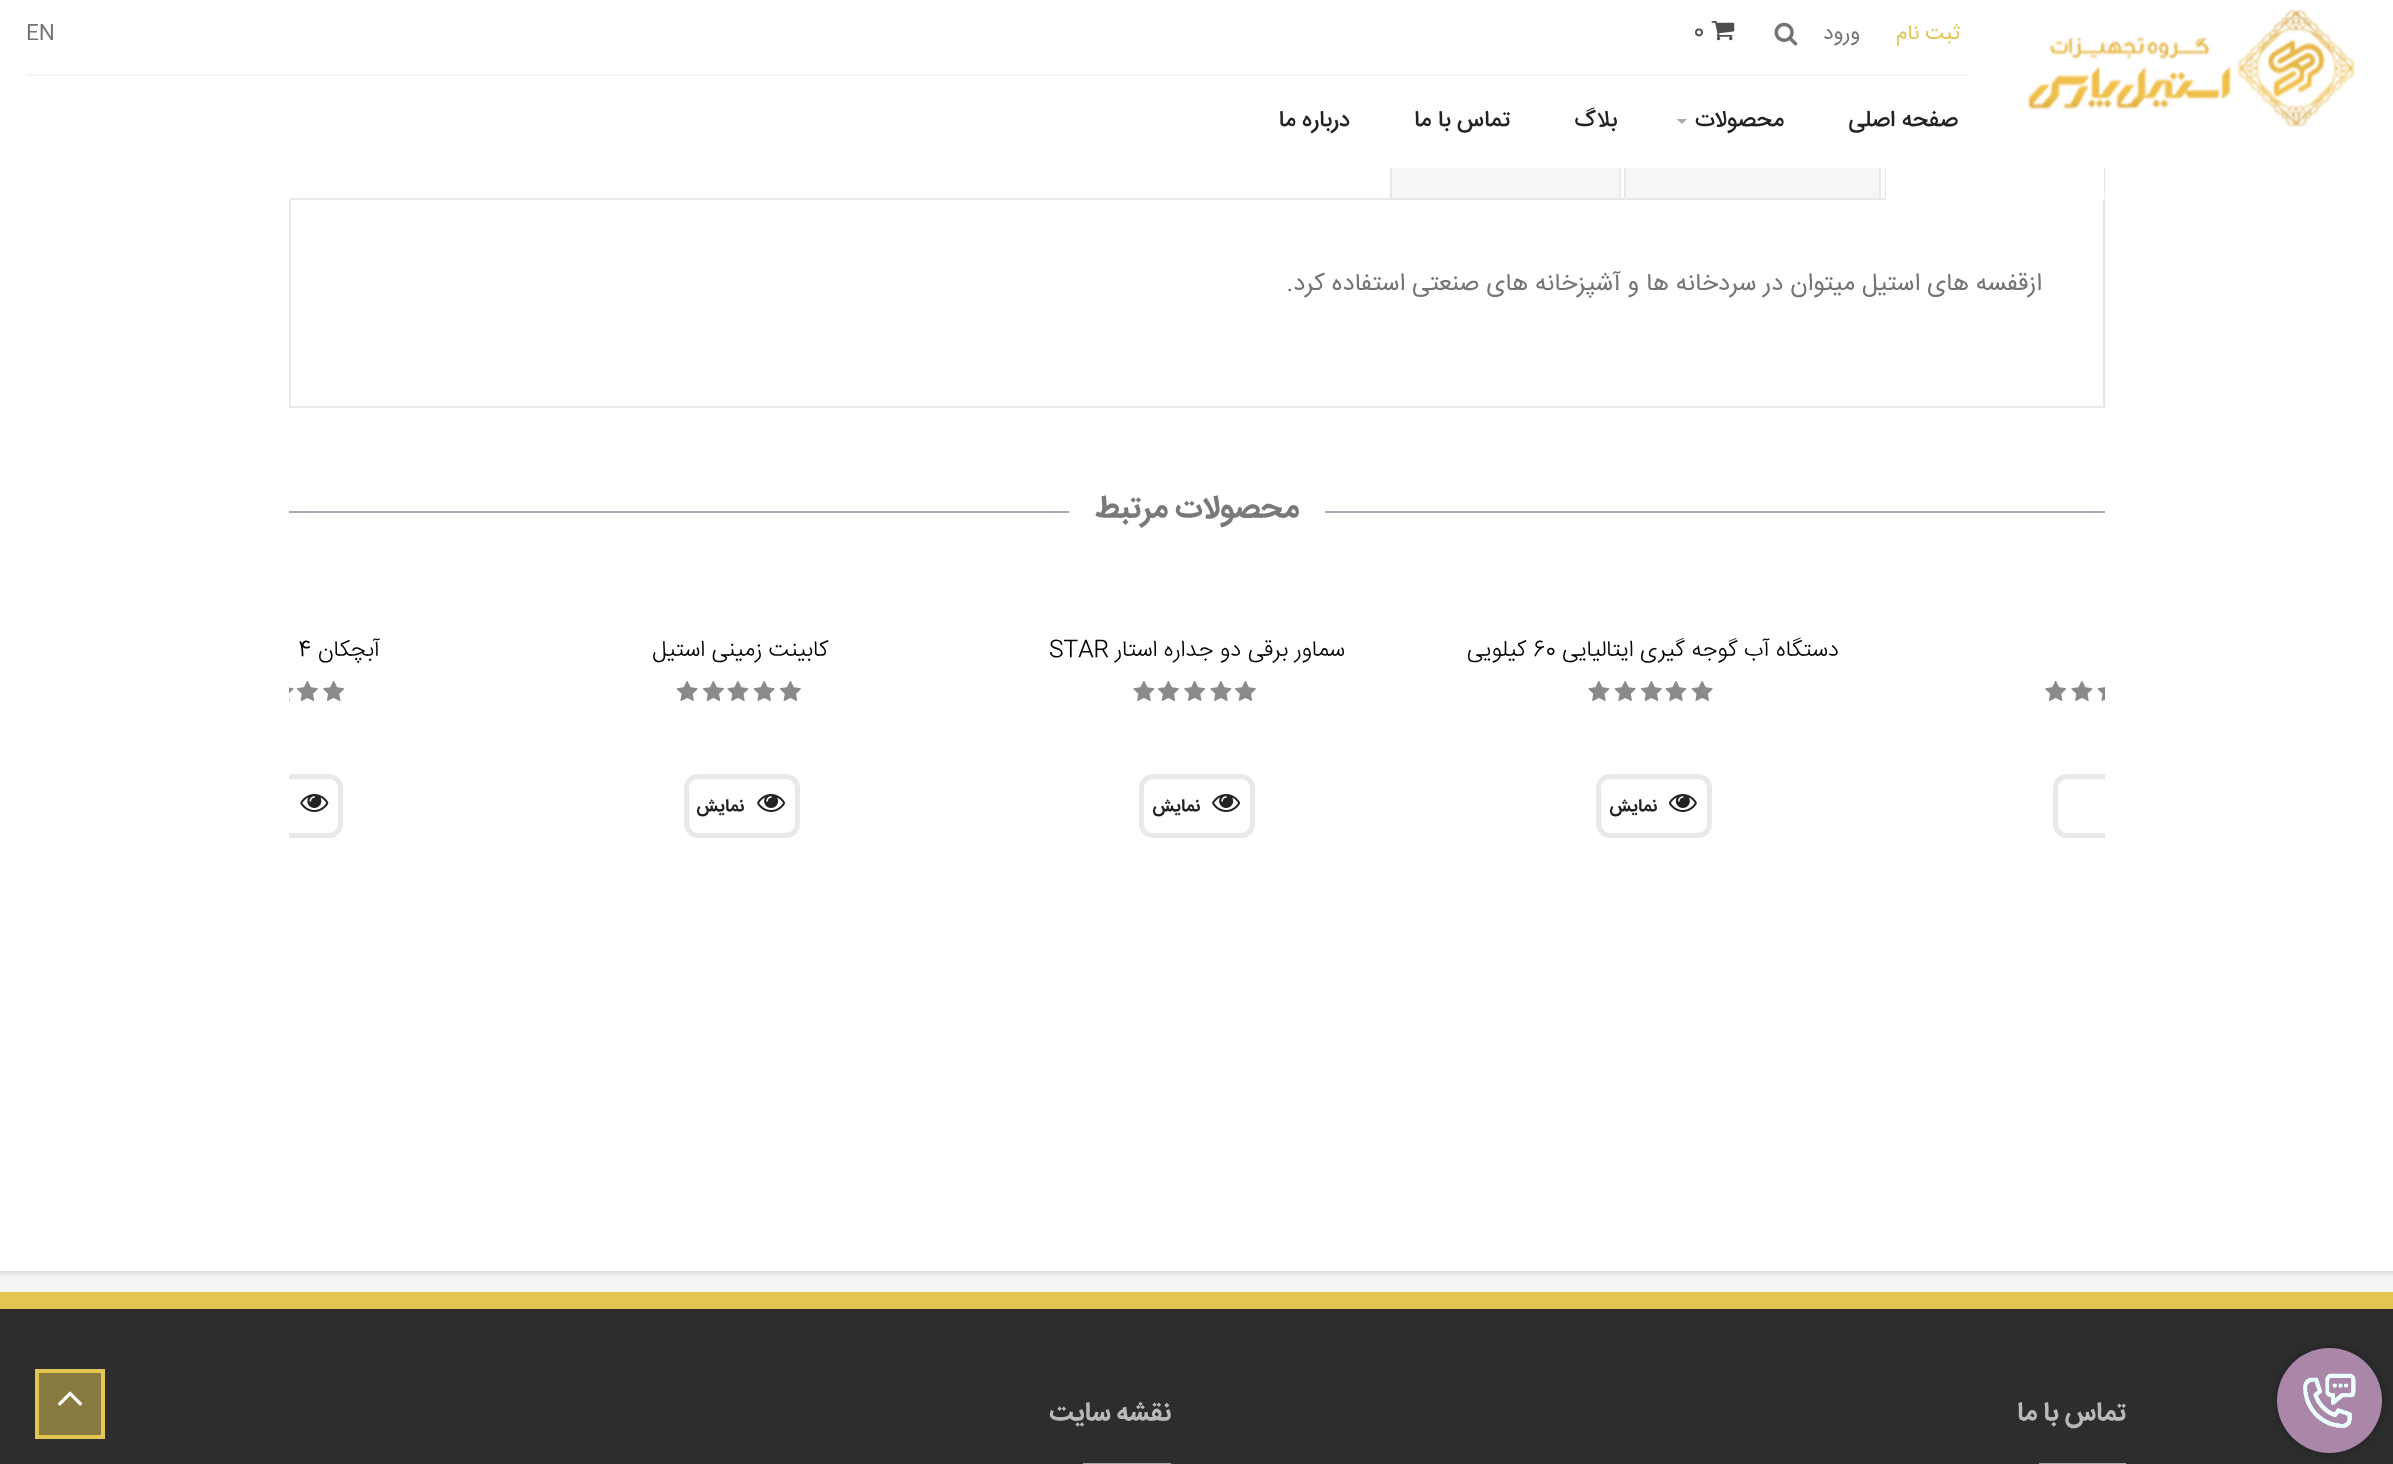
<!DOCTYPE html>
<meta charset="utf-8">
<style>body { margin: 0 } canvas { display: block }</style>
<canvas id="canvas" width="2393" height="1464"></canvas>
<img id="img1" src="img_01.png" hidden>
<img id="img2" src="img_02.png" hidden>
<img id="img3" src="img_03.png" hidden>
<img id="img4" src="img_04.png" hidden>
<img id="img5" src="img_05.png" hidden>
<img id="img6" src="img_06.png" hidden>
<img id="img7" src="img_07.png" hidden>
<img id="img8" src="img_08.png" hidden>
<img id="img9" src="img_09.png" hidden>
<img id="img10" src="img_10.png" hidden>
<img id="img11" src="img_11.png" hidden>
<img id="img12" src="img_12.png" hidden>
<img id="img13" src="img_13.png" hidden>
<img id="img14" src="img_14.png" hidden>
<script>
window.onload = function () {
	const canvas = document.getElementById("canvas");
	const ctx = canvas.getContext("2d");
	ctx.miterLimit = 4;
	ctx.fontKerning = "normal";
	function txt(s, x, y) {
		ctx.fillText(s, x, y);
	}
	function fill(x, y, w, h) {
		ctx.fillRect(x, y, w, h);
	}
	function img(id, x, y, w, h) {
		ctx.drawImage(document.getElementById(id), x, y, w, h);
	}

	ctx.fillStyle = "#F5F5F5";
	fill(0, 0, 2393, 1464);
	ctx.fillStyle = "rgba(0, 0, 0, 0.1)";
	ctx.filter = "blur(2px)";
	ctx.beginPath();
	ctx.rect(-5, -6, 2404, 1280);
	ctx.fill();
	ctx.filter = "none";
	ctx.fillStyle = "#FFFFFF";
	fill(0, 168, 2393, 1103);
	ctx.strokeStyle = "#E9E9E9";
	ctx.lineWidth = 2;
	ctx.strokeRect(290, 199, 1814, 208);
	fill(1885, 198, 220, 2);
	ctx.fillStyle = "#E9E9E9";
	ctx.beginPath();
	ctx.moveTo(2105, 117);
	ctx.lineTo(2105, 200);
	ctx.lineTo(2104, 198);
	ctx.lineTo(2104, 119);
	ctx.closePath();
	ctx.fill();
	ctx.beginPath();
	ctx.moveTo(1885, 200);
	ctx.lineTo(1885, 117);
	ctx.lineTo(1886, 119);
	ctx.lineTo(1886, 198);
	ctx.closePath();
	ctx.fill();
	ctx.fillStyle = "#F5F6F7";
	fill(1626, 168, 253, 30);
	ctx.strokeRect(1625, 127, 255, 72);
	fill(1392, 168, 227, 30);
	ctx.strokeRect(1391, 127, 229, 72);
	ctx.fillStyle = "#FFFFFF";
	fill(0, 0, 2393, 168);
	img("img1", 2027, 10, 328, 117);
	ctx.fillStyle = "#F5F5F5";
	fill(26, 74, 1943, 2);
	img("img2", 1774, 22, 24, 24);
	img("img3", 1711, 21, 24, 20);
	ctx.fillStyle = "#A5ABB7";
	ctx.beginPath();
	ctx.moveTo(1676.5, 119);
	ctx.lineTo(1687, 119);
	ctx.lineTo(1682, 124);
	ctx.closePath();
	ctx.fill();
	fill(1325, 511, 780, 2);
	fill(289, 511, 780, 2);
	img("img4", 2097, 686, 8, 15);
	img("img5", 2071, 681, 22, 20);
	img("img6", 2045, 681, 22, 20);
	ctx.save();
	ctx.beginPath();
	ctx.rect(1887, 607, 218, 231);
	ctx.clip();
	ctx.beginPath();
	ctx.roundRect(2055.5, 776.5, 110, 59, 11.5);
	ctx.lineWidth = 5;
	ctx.stroke();
	ctx.restore();
	img("img7", 1691, 681, 22, 20);
	img("img5", 1665, 681, 22, 20);
	img("img8", 1640, 681, 22, 20);
	img("img7", 1614, 681, 22, 20);
	img("img5", 1588, 681, 22, 20);
	ctx.beginPath();
	ctx.roundRect(1598.5, 776.5, 111, 59, 11.5);
	ctx.lineWidth = 5;
	ctx.stroke();
	img("img9", 1668, 794, 29, 18);
	img("img8", 1234, 681, 22, 20);
	img("img5", 1210, 681, 22, 20);
	img("img6", 1184, 681, 22, 20);
	img("img8", 1157, 681, 22, 20);
	img("img5", 1133, 681, 22, 20);
	ctx.beginPath();
	ctx.roundRect(1141.5, 776.5, 111, 59, 11.5);
	ctx.stroke();
	img("img10", 1212, 794, 28, 18);
	img("img8", 779, 681, 22, 20);
	img("img7", 753, 681, 22, 20);
	img("img5", 727, 681, 22, 20);
	img("img8", 702, 681, 22, 20);
	img("img7", 676, 681, 22, 20);
	ctx.beginPath();
	ctx.roundRect(686.5, 776.5, 111, 59, 11.5);
	ctx.stroke();
	img("img10", 757, 794, 28, 18);
	img("img6", 323, 681, 22, 20);
	img("img8", 296, 681, 22, 20);
	img("img11", 289, 687, 5, 14);
	ctx.save();
	ctx.beginPath();
	ctx.rect(289, 607, 220, 231);
	ctx.clip();
	ctx.beginPath();
	ctx.roundRect(230.5, 776.5, 110, 59, 11.5);
	ctx.stroke();
	ctx.restore();
	img("img12", 300, 794, 29, 18);
	ctx.fillStyle = "#2D2D2D";
	fill(0, 1309, 2393, 155);
	ctx.fillStyle = "rgba(0, 0, 0, 0.3)";
	ctx.filter = "blur(4.5px)";
	ctx.beginPath();
	ctx.roundRect(2277, 1348, 105, 105, 52.5);
	ctx.fill();
	ctx.filter = "none";
	ctx.fillStyle = "#AA87A9";
	ctx.beginPath();
	ctx.arc(2329.5, 1400.5, 52.5, 0, Math.PI * 2);
	ctx.fill();
	img("img13", 2303, 1373, 53, 55);
	ctx.fillStyle = "#E3C552";
	fill(0, 1292, 2393, 17);
	ctx.fillStyle = "#A3A4A5";
	fill(2039, 1463, 87, 1);
	fill(1083, 1463, 88, 1);
	ctx.fillStyle = "#887940";
	ctx.beginPath();
	ctx.rect(37, 1371, 66, 66);
	ctx.fill();
	ctx.strokeStyle = "#E3C552";
	ctx.lineWidth = 4;
	ctx.stroke();
	img("img14", 57, 1391, 26, 15);
	ctx.direction = "rtl";
	ctx.font = "21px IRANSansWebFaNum";
	ctx.fillStyle = "#E3C552";
	txt("ثبت نام", 1960, 39);
	ctx.fillStyle = "#737475";
	txt("ورود", 1860, 39);
	ctx.direction = "ltr";
	ctx.font = "24.5px IRANSansWebFaNum";
	ctx.fillStyle = "#4E4E4E";
	txt("0", 1693, 38);
	ctx.font = "21px IRANSansWebFaNum";
	ctx.fillStyle = "#737475";
	txt("EN", 26, 39);
	ctx.direction = "rtl";
	ctx.font = "500 22.75px IRANSansWebFaNum";
	ctx.fillStyle = "#232323";
	txt("صفحه اصلی", 1958, 126);
	txt("محصولات", 1784, 126);
	txt("بلاگ", 1617, 126);
	txt("تماس با ما", 1510, 126);
	txt("درباره ما", 1350, 126);
	ctx.font = "24.5px IRANSansWebFaNum";
	ctx.fillStyle = "#737475";
	txt("ازقفسه های استیل میتوان در سردخانه ها و آشپزخانه های صنعتی استفاده کرد.", 2042, 290);
	ctx.font = "bold 31.5px IRANSansWebFaNum";
	ctx.fillStyle = "#797979";
	txt("محصولات مرتبط", 1299, 517);
	ctx.font = "300 22.75px IRANSansWebFaNum";
	ctx.fillStyle = "#000000";
	txt("دستگاه آب گوجه گیری ایتالیایی", 1839, 656);
	ctx.direction = "ltr";
	txt("60", 1533, 656);
	ctx.direction = "rtl";
	txt("کیلویی", 1526, 656);
	ctx.font = "bold 17.5px IRANSansWebFaNum";
	ctx.fillStyle = "#232323";
	txt("نمایش", 1657, 811);
	ctx.font = "300 22.75px IRANSansWebFaNum";
	ctx.fillStyle = "#000000";
	txt("سماور برقی دو جداره استار", 1345, 656);
	ctx.direction = "ltr";
	txt("STAR", 1049, 656);
	ctx.direction = "rtl";
	ctx.font = "bold 17.5px IRANSansWebFaNum";
	ctx.fillStyle = "#232323";
	txt("نمایش", 1200, 811);
	ctx.font = "300 22.75px IRANSansWebFaNum";
	ctx.fillStyle = "#000000";
	txt("کابینت زمینی استیل", 828, 656);
	ctx.font = "bold 17.5px IRANSansWebFaNum";
	ctx.fillStyle = "#232323";
	txt("نمایش", 744, 811);
	ctx.font = "300 22.75px IRANSansWebFaNum";
	ctx.fillStyle = "#000000";
	txt("آبچکان", 380, 656);
	ctx.direction = "ltr";
	txt("4", 298, 656);
	ctx.direction = "rtl";
	ctx.font = "bold 26.25px IRANSansWebFaNum";
	ctx.fillStyle = "#B9B9B9";
	txt("تماس با ما", 2126, 1420);
	txt("نقشه سایت", 1171, 1420);
};
</script>
